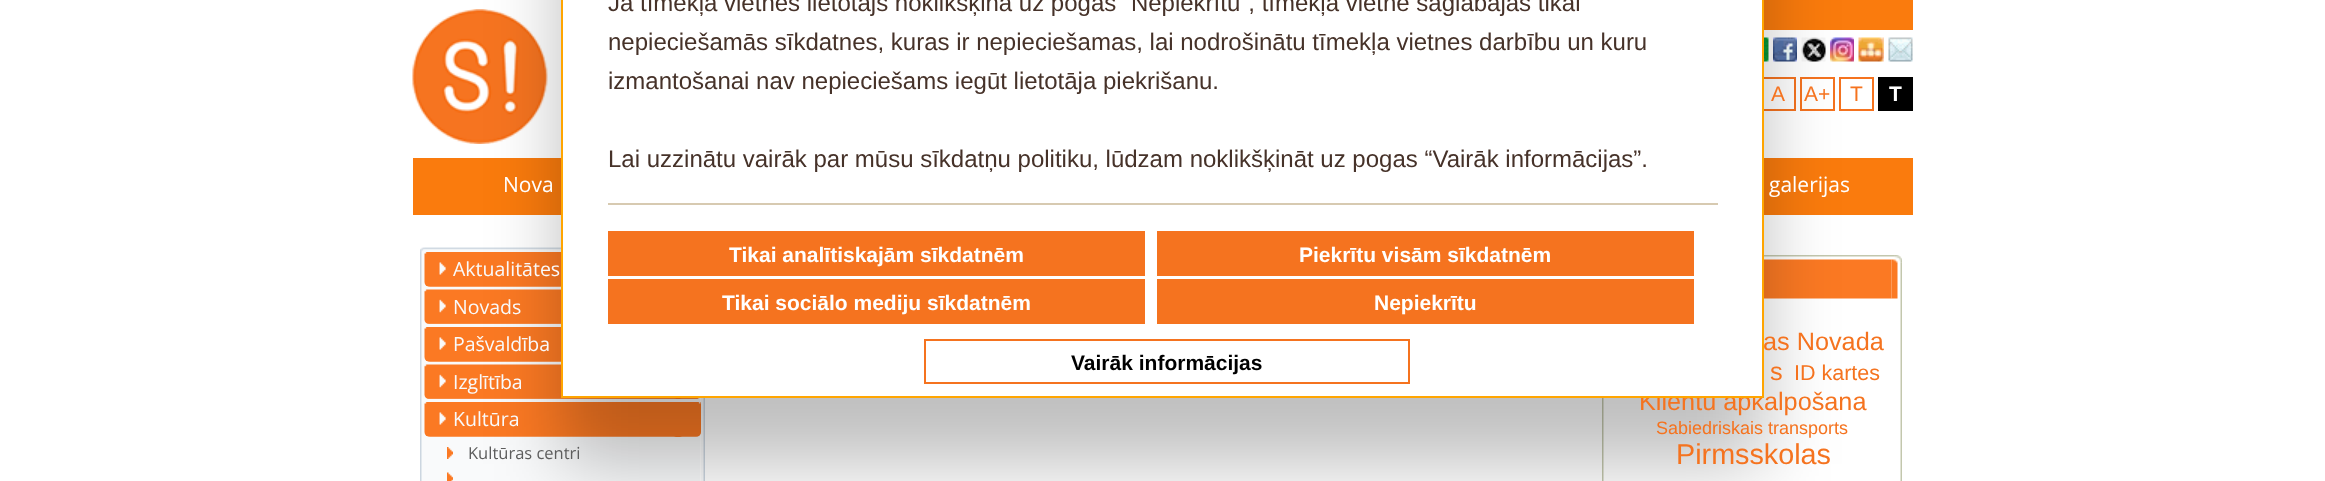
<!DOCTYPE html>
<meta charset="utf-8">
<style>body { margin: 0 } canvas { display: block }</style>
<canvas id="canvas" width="2325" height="481"></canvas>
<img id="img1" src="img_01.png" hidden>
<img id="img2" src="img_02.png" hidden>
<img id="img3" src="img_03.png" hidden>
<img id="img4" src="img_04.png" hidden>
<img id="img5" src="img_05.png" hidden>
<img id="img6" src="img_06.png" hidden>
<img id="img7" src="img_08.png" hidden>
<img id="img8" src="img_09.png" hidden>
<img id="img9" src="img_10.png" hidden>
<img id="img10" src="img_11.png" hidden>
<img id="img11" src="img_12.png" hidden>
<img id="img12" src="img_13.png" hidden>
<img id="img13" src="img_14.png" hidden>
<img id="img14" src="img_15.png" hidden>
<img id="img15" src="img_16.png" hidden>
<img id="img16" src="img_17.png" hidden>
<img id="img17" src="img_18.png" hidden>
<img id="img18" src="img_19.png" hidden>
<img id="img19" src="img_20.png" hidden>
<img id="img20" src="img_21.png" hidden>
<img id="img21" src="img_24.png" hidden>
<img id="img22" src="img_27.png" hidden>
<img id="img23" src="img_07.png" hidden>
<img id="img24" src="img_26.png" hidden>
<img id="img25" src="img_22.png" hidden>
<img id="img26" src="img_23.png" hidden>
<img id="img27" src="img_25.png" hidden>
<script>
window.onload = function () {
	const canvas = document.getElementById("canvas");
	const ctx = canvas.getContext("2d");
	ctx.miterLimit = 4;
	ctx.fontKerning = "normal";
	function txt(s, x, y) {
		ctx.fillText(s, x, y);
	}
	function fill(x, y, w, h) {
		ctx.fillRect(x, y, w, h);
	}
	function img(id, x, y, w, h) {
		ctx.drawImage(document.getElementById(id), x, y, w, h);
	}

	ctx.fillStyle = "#FFFFFF";
	fill(0, 0, 2325, 481);
	img("img1", 412, 9, 136, 135);
	ctx.fillStyle = "#FA7B0D";
	fill(1764, 0, 149, 30);
	img("img2", 1764, 37, 5, 25);
	img("img3", 1773, 37, 24, 25);
	img("img4", 1801, 37, 25, 25);
	img("img5", 1830, 37, 24, 25);
	img("img6", 1858, 37, 26, 25);
	ctx.strokeStyle = "#F5731F";
	ctx.lineWidth = 2;
	ctx.strokeRect(1762, 78, 33, 32);
	ctx.strokeRect(1801, 78, 33, 32);
	ctx.strokeRect(1840, 78, 33, 32);
	fill(413, 158, 1500, 57);
	img("img7", 420, 247, 141, 5);
	img("img8", 420, 247, 141, 4);
	img("img9", 420, 252, 280, 229);
	ctx.fillStyle = "#FB7923";
	ctx.beginPath();
	ctx.roundRect(425, 252, 276, 35, [0, 0, 5, 5]);
	ctx.fill();
	img("img10", 424, 252, 137, 35);
	img("img11", 424, 289, 137, 35);
	ctx.beginPath();
	ctx.roundRect(425, 327, 276, 35, [0, 0, 5, 5]);
	ctx.fill();
	img("img10", 424, 327, 137, 35);
	ctx.beginPath();
	ctx.roundRect(425, 365, 276, 34, [0, 0, 5, 5]);
	ctx.fill();
	img("img12", 424, 364, 253, 35);
	img("img13", 679, 398, 20, 1);
	ctx.beginPath();
	ctx.roundRect(425, 402, 276, 35, [0, 0, 5, 5]);
	ctx.fill();
	img("img14", 424, 402, 252, 35);
	img("img15", 680, 402, 21, 35);
	img("img16", 447, 447, 6, 12);
	img("img17", 447, 472, 6, 9);
	img("img18", 701, 398, 4, 83);
	img("img19", 1891, 255, 4, 8);
	img("img20", 1764, 255, 131, 8);
	img("img21", 1764, 259, 128, 40);
	img("img22", 1602, 398, 2, 83);
	ctx.fillStyle = "rgba(0, 0, 0, 0.25)";
	ctx.filter = "blur(36px)";
	ctx.beginPath();
	ctx.rect(561, -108, 1203, 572);
	ctx.fill();
	ctx.filter = "none";
	img("img23", 1888, 37, 25, 25);
	ctx.fillStyle = "#000000";
	fill(1878, 77, 35, 34);
	img("img24", 1900, 262, 2, 219);
	img("img25", 1894, 255, 8, 8);
	img("img26", 1894, 255, 8, 8);
	img("img27", 1891, 259, 7, 40);
	ctx.font = "21px Liberation Sans";
	ctx.fillStyle = "#F5731F";
	txt("A", 1771, 101);
	txt("A+", 1804, 101);
	txt("T", 1850, 101);
	ctx.font = "bold 21px Liberation Sans";
	ctx.fillStyle = "#FFFFFF";
	txt("T", 1889, 101);
	ctx.font = "21px Open Sans";
	txt("Nova", 503, 192);
	txt("galerijas", 1769, 192);
	ctx.font = "19.5px Open Sans";
	ctx.fillStyle = "#F9FAFB";
	txt("Aktualitātes", 453, 276);
	txt("Novads", 453, 314);
	txt("Pašvaldība", 453, 351);
	txt("Izglītība", 453, 389);
	txt("Kultūra", 453, 426);
	ctx.font = "16.5px Open Sans";
	ctx.fillStyle = "#5D5D5D";
	txt("Kultūras centri", 468, 459);
	ctx.font = "25.25px Liberation Sans";
	ctx.fillStyle = "#F5731F";
	txt("as Novada", 1763, 350);
	txt("s", 1770, 380);
	ctx.font = "21.5px Liberation Sans";
	txt("ID kartes", 1794, 380);
	ctx.font = "25.25px Liberation Sans";
	txt("Klientu apkalpošana", 1639, 410);
	ctx.fillStyle = "#FFFFFF";
	ctx.beginPath();
	ctx.rect(562, -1, 1201, 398);
	ctx.fill();
	ctx.strokeStyle = "#FFA500";
	ctx.stroke();
	ctx.strokeStyle = "#F5731F";
	ctx.strokeRect(925, 340, 484, 43);
	ctx.font = "bold 21px Liberation Sans";
	ctx.fillStyle = "#000000";
	txt("Vairāk informācijas", 1071, 370);
	ctx.fillStyle = "#F5731F";
	fill(1157, 279, 537, 45);
	ctx.fillStyle = "#FFFFFF";
	txt("Nepiekrītu", 1374, 310);
	ctx.fillStyle = "#F5731F";
	fill(608, 279, 537, 45);
	ctx.fillStyle = "#FFFFFF";
	txt("Tikai sociālo mediju sīkdatnēm", 722, 310);
	ctx.fillStyle = "#F5731F";
	fill(1157, 231, 537, 45);
	ctx.fillStyle = "#FFFFFF";
	txt("Piekrītu visām sīkdatnēm", 1299, 262);
	ctx.fillStyle = "#F5731F";
	fill(608, 231, 537, 45);
	ctx.fillStyle = "#FFFFFF";
	txt("Tikai analītiskajām sīkdatnēm", 729, 262);
	ctx.font = "24px Liberation Sans";
	ctx.fillStyle = "#463229";
	txt("Lai uzzinātu vairāk par mūsu sīkdatņu politiku, lūdzam noklikšķināt uz pogas “Vairāk informācijas”.", 608, 167);
	txt("izmantošanai nav nepieciešams iegūt lietotāja piekrišanu.", 608, 89);
	txt("nepieciešamās sīkdatnes, kuras ir nepieciešamas, lai nodrošinātu tīmekļa vietnes darbību un kuru", 608, 50);
	txt("Ja tīmekļa vietnes lietotājs noklikšķina uz pogas “Nepiekrītu”, tīmekļa vietnē saglabājas tikai", 608, 11);
	ctx.fillStyle = "#D7CAB1";
	fill(608, 203, 1110, 2);
	ctx.font = "18px Liberation Sans";
	ctx.fillStyle = "#F5731F";
	txt("Sabiedriskais transports", 1656, 434);
	ctx.font = "28.75px Liberation Sans";
	txt("Pirmsskolas", 1676, 464);
};
</script>
